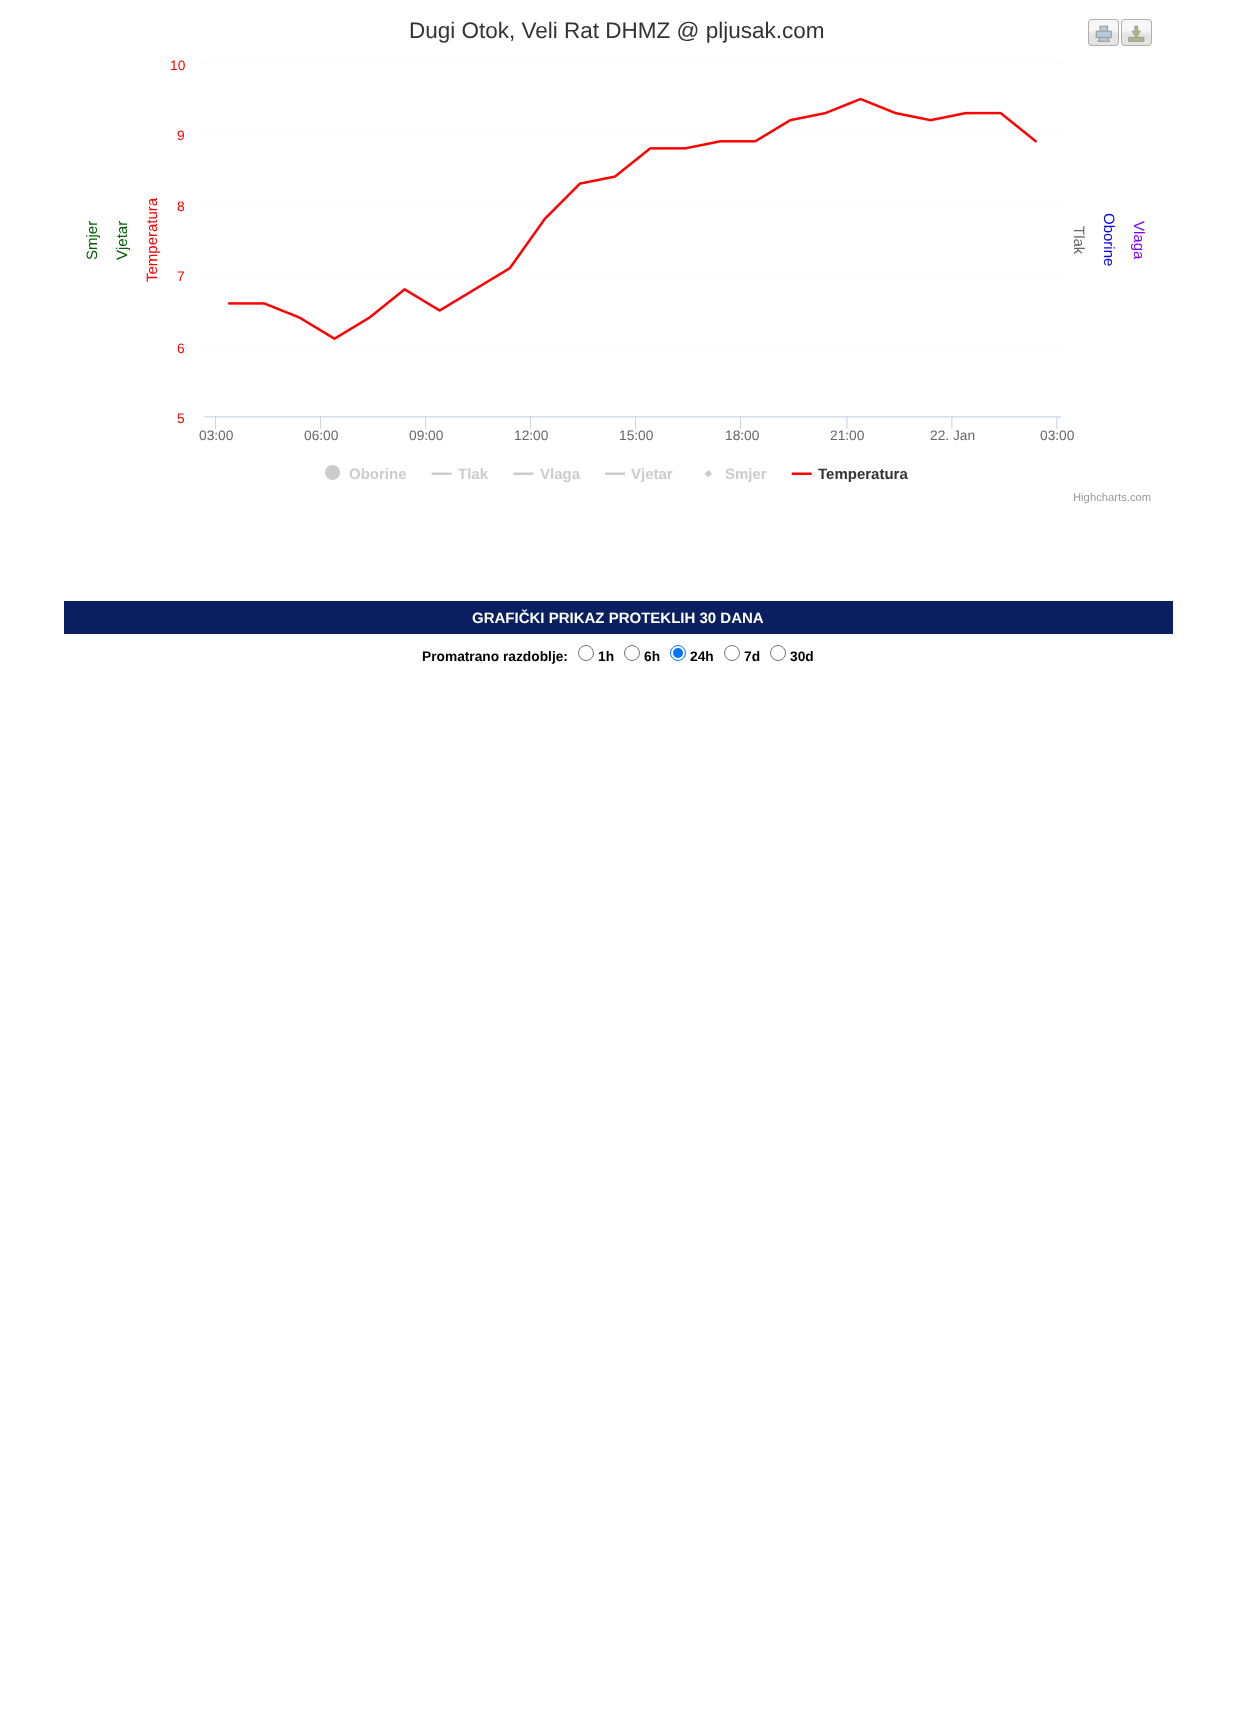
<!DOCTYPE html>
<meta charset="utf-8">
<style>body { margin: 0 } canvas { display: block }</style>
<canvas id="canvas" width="1234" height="1736"></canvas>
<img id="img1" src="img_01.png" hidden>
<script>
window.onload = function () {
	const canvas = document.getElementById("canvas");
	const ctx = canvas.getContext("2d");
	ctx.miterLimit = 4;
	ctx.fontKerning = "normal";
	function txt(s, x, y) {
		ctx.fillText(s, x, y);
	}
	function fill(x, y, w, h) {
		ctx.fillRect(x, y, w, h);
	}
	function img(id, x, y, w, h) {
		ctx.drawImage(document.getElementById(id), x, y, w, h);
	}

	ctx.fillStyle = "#FFFFFF";
	fill(0, 0, 1234, 1736);
	img("img1", 203, 19, 949, 461);
	ctx.fillStyle = "#0A1F5F";
	fill(64, 601, 1109, 33);
	ctx.beginPath();
	ctx.arc(586, 653, 7.5, 0, Math.PI * 2);
	ctx.strokeStyle = "#767676";
	ctx.stroke();
	ctx.beginPath();
	ctx.arc(632, 653, 7.5, 0, Math.PI * 2);
	ctx.stroke();
	ctx.beginPath();
	ctx.arc(678, 653, 7.5, 0, Math.PI * 2);
	ctx.strokeStyle = "#0075FF";
	ctx.stroke();
	ctx.fillStyle = "#0075FF";
	ctx.beginPath();
	ctx.arc(678, 653, 5, 0, Math.PI * 2);
	ctx.fill();
	ctx.beginPath();
	ctx.arc(732, 653, 7.5, 0, Math.PI * 2);
	ctx.strokeStyle = "#767676";
	ctx.stroke();
	ctx.beginPath();
	ctx.arc(778, 653, 7.5, 0, Math.PI * 2);
	ctx.stroke();
	ctx.font = "22.5px Liberation Sans";
	ctx.fillStyle = "#333333";
	txt("Dugi Otok, Veli Rat DHMZ @ pljusak.com", 409, 38);
	ctx.font = "13.75px Liberation Sans";
	ctx.fillStyle = "#FF0000";
	txt("10", 170, 70);
	txt("9", 177, 140);
	ctx.font = "15px Liberation Sans";
	ctx.save();
	ctx.translate(157, 282);
	ctx.rotate(-90 * Math.PI / 180);
	ctx.fillText("Temperatura", 0, 0);
	ctx.restore();
	ctx.font = "13.75px Liberation Sans";
	txt("8", 177, 211);
	ctx.font = "15px Liberation Sans";
	ctx.fillStyle = "#006000";
	ctx.save();
	ctx.translate(97, 260);
	ctx.rotate(-90 * Math.PI / 180);
	ctx.fillText("Smjer", 0, 0);
	ctx.restore();
	ctx.save();
	ctx.translate(127, 260);
	ctx.rotate(-90 * Math.PI / 180);
	ctx.fillText("Vjetar", 0, 0);
	ctx.restore();
	ctx.fillStyle = "#666666";
	ctx.save();
	ctx.translate(1074, 226);
	ctx.rotate(90 * Math.PI / 180);
	ctx.fillText("Tlak", 0, 0);
	ctx.restore();
	ctx.fillStyle = "#0000FF";
	ctx.save();
	ctx.translate(1104, 213);
	ctx.rotate(90 * Math.PI / 180);
	ctx.fillText("Oborine", 0, 0);
	ctx.restore();
	ctx.fillStyle = "#7F00FF";
	ctx.save();
	ctx.translate(1134, 221);
	ctx.rotate(90 * Math.PI / 180);
	ctx.fillText("Vlaga", 0, 0);
	ctx.restore();
	ctx.font = "13.75px Liberation Sans";
	ctx.fillStyle = "#FF0000";
	txt("7", 177, 281);
	txt("6", 177, 353);
	txt("5", 177, 423);
	ctx.fillStyle = "#666666";
	txt("03:00", 199, 440);
	txt("06:00", 304, 440);
	txt("09:00", 409, 440);
	txt("12:00", 514, 440);
	txt("15:00", 619, 440);
	txt("18:00", 725, 440);
	txt("21:00", 830, 440);
	txt("22. Jan", 930, 440);
	txt("03:00", 1040, 440);
	ctx.font = "bold 15px Liberation Sans";
	ctx.fillStyle = "#CCCCCC";
	txt("Oborine", 349, 479);
	txt("Tlak", 458, 479);
	txt("Vlaga", 540, 479);
	txt("Vjetar", 631, 479);
	txt("Smjer", 725, 479);
	ctx.fillStyle = "#333333";
	txt("Temperatura", 818, 479);
	ctx.font = "11.25px Liberation Sans";
	ctx.fillStyle = "#999999";
	txt("Highcharts.com", 1073, 501);
	ctx.font = "bold 15px Liberation Sans";
	ctx.fillStyle = "#FFFFFF";
	txt("GRAFIČKI PRIKAZ PROTEKLIH 30 DANA", 472, 623);
	ctx.font = "bold 13.75px Liberation Sans";
	ctx.fillStyle = "#000000";
	txt("Promatrano razdoblje:", 422, 661);
	txt("1h", 598, 661);
	txt("6h", 644, 661);
	txt("24h", 690, 661);
	txt("7d", 744, 661);
	txt("30d", 790, 661);
};
</script>
